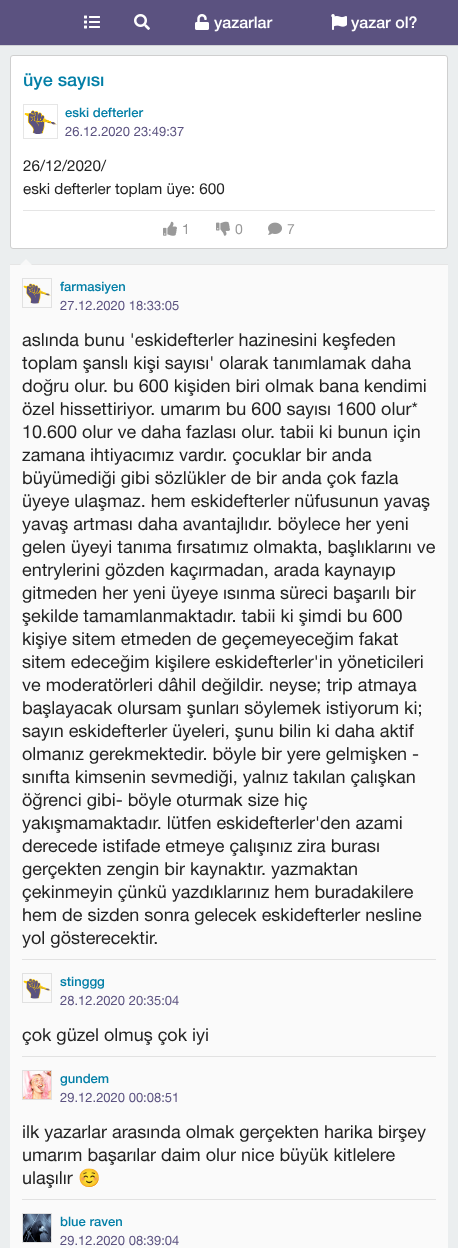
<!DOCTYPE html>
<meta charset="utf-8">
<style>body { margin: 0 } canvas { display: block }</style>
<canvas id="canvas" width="458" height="1248"></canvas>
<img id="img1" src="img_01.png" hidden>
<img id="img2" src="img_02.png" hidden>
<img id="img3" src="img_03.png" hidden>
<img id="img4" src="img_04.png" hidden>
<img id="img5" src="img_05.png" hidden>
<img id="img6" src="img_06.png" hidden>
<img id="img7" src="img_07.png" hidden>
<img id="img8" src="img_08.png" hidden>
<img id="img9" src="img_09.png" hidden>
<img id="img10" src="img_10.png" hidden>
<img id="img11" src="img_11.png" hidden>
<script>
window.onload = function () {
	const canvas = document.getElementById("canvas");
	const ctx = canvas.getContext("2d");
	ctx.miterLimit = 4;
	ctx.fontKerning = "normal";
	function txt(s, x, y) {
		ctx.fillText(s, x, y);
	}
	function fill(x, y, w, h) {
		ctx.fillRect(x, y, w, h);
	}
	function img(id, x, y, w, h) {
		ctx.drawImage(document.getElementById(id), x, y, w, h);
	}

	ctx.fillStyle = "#EBEEEF";
	fill(0, 0, 458, 1248);
	ctx.fillStyle = "#5B5280";
	fill(0, 0, 458, 45);
	ctx.fillStyle = "#D0D1D5";
	fill(0, 45, 458, 1);
	img("img1", 84, 15, 16, 14);
	img("img2", 134, 14, 16, 16);
	img("img3", 195, 14, 14, 16);
	img("img4", 331, 14, 16, 16);
	ctx.fillStyle = "#FFFFFF";
	ctx.beginPath();
	ctx.roundRect(10.5, 55.5, 437, 193, 2.5);
	ctx.fill();
	ctx.strokeStyle = "#CFCFCF";
	ctx.stroke();
	ctx.strokeStyle = "#E6E6E6";
	ctx.strokeRect(23.5, 104.5, 34, 34);
	img("img5", 24, 110, 33, 24);
	ctx.fillStyle = "#E5E5E5";
	fill(23, 210, 412, 1);
	img("img6", 163, 221, 14, 15);
	img("img7", 216, 221, 14, 15);
	img("img8", 268, 222, 14, 13);
	ctx.fillStyle = "#FAFAFA";
	fill(10, 265, 438, 983);
	ctx.fillStyle = "#E5E5E5";
	fill(10, 264, 438, 1);
	ctx.fillStyle = "#F8F8F8";
	ctx.beginPath();
	ctx.moveTo(32, 265);
	ctx.lineTo(20, 265);
	ctx.lineTo(26, 259);
	ctx.closePath();
	ctx.fill();
	ctx.strokeStyle = "#E1E1E1";
	ctx.strokeRect(22.5, 278.5, 29, 29);
	img("img9", 23, 283, 28, 21);
	ctx.fillStyle = "#E2E2E2";
	fill(22, 959, 414, 1);
	ctx.strokeRect(22.5, 973.5, 29, 29);
	img("img9", 23, 978, 28, 21);
	fill(22, 1056, 414, 1);
	ctx.strokeRect(22.5, 1070.5, 29, 29);
	img("img10", 23, 1071, 28, 28);
	fill(22, 1199, 414, 1);
	ctx.strokeRect(22.5, 1213.5, 29, 29);
	img("img11", 23, 1214, 28, 28);
	ctx.font = "500 16px 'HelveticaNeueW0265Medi'";
	ctx.fillStyle = "#FFFFFF";
	txt("yazarlar", 214, 28);
	txt("yazar ol?", 351, 28);
	ctx.font = "500 18px 'HelveticaNeueW0265Medi'";
	ctx.fillStyle = "#037FA7";
	txt("üye sayısı", 23, 86);
	ctx.font = "500 13px 'HelveticaNeueW0265Medi'";
	txt("eski defterler", 65, 117);
	ctx.font = "13px 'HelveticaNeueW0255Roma'";
	ctx.fillStyle = "#5B5280";
	txt("26.12.2020 23:49:37", 65, 136);
	ctx.font = "15.25px 'HelveticaNeueW0255Roma'";
	ctx.fillStyle = "#232323";
	txt("26/12/2020/", 23, 171);
	txt("eski defterler toplam üye: 600", 23, 194);
	ctx.font = "14px 'HelveticaNeueW0255Roma'";
	ctx.fillStyle = "#999999";
	txt("1", 182, 234);
	txt("0", 235, 234);
	txt("7", 287, 234);
	ctx.font = "500 13px 'HelveticaNeueW0265Medi'";
	ctx.fillStyle = "#037FA7";
	txt("farmasiyen", 60, 291);
	ctx.font = "13px 'HelveticaNeueW0255Roma'";
	ctx.fillStyle = "#5B5280";
	txt("27.12.2020 18:33:05", 60, 310);
	ctx.font = "18px 'HelveticaNeueW0255Roma'";
	ctx.fillStyle = "#232323";
	txt("aslında bunu 'eskidefterler hazinesini keşfeden", 22, 346);
	txt("toplam şanslı kişi sayısı' olarak tanımlamak daha", 22, 369);
	txt("doğru olur. bu 600 kişiden biri olmak bana kendimi", 22, 392);
	txt("özel hissettiriyor. umarım bu 600 sayısı 1600 olur*", 22, 415);
	txt("10.600 olur ve daha fazlası olur. tabii ki bunun için", 22, 438);
	txt("zamana ihtiyacımız vardır. çocuklar bir anda", 22, 461);
	txt("büyümediği gibi sözlükler de bir anda çok fazla", 22, 484);
	txt("üyeye ulaşmaz. hem eskidefterler nüfusunun yavaş", 22, 507);
	txt("yavaş artması daha avantajlıdır. böylece her yeni", 22, 530);
	txt("gelen üyeyi tanıma fırsatımız olmakta, başlıklarını ve", 22, 553);
	txt("entrylerini gözden kaçırmadan, arada kaynayıp", 22, 576);
	txt("gitmeden her yeni üyeye ısınma süreci başarılı bir", 22, 599);
	txt("şekilde tamamlanmaktadır. tabii ki şimdi bu 600", 22, 622);
	txt("kişiye sitem etmeden de geçemeyeceğim fakat", 22, 645);
	txt("sitem edeceğim kişilere eskidefterler'in yöneticileri", 22, 668);
	txt("ve moderatörleri dâhil değildir. neyse; trip atmaya", 22, 691);
	txt("başlayacak olursam şunları söylemek istiyorum ki;", 22, 714);
	txt("sayın eskidefterler üyeleri, şunu bilin ki daha aktif", 22, 737);
	txt("olmanız gerekmektedir. böyle bir yere gelmişken -", 22, 760);
	txt("sınıfta kimsenin sevmediği, yalnız takılan çalışkan", 22, 783);
	txt("öğrenci gibi- böyle oturmak size hiç", 22, 806);
	txt("yakışmamaktadır. lütfen eskidefterler'den azami", 22, 829);
	txt("derecede istifade etmeye çalışınız zira burası", 22, 852);
	txt("gerçekten zengin bir kaynaktır. yazmaktan", 22, 875);
	txt("çekinmeyin çünkü yazdıklarınız hem buradakilere", 22, 898);
	txt("hem de sizden sonra gelecek eskidefterler nesline", 22, 921);
	txt("yol gösterecektir.", 22, 944);
	ctx.font = "500 13px 'HelveticaNeueW0265Medi'";
	ctx.fillStyle = "#037FA7";
	txt("stinggg", 60, 986);
	ctx.font = "13px 'HelveticaNeueW0255Roma'";
	ctx.fillStyle = "#5B5280";
	txt("28.12.2020 20:35:04", 60, 1005);
	ctx.font = "18px 'HelveticaNeueW0255Roma'";
	ctx.fillStyle = "#232323";
	txt("çok güzel olmuş çok iyi", 22, 1041);
	ctx.font = "500 13px 'HelveticaNeueW0265Medi'";
	ctx.fillStyle = "#037FA7";
	txt("gundem", 60, 1083);
	ctx.font = "13px 'HelveticaNeueW0255Roma'";
	ctx.fillStyle = "#5B5280";
	txt("29.12.2020 00:08:51", 60, 1102);
	ctx.font = "18px 'HelveticaNeueW0255Roma'";
	ctx.fillStyle = "#232323";
	txt("ilk yazarlar arasında olmak gerçekten harika birşey", 22, 1138);
	txt("umarım başarılar daim olur nice büyük kitlelere", 22, 1161);
	txt("ulaşılır", 22, 1184);
	ctx.font = "18px Noto Color Emoji";
	txt("☺️", 78, 1184);
	ctx.font = "500 13px 'HelveticaNeueW0265Medi'";
	ctx.fillStyle = "#037FA7";
	txt("blue raven", 60, 1226);
	ctx.font = "13px 'HelveticaNeueW0255Roma'";
	ctx.fillStyle = "#5B5280";
	txt("29.12.2020 08:39:04", 60, 1245);
};
</script>
